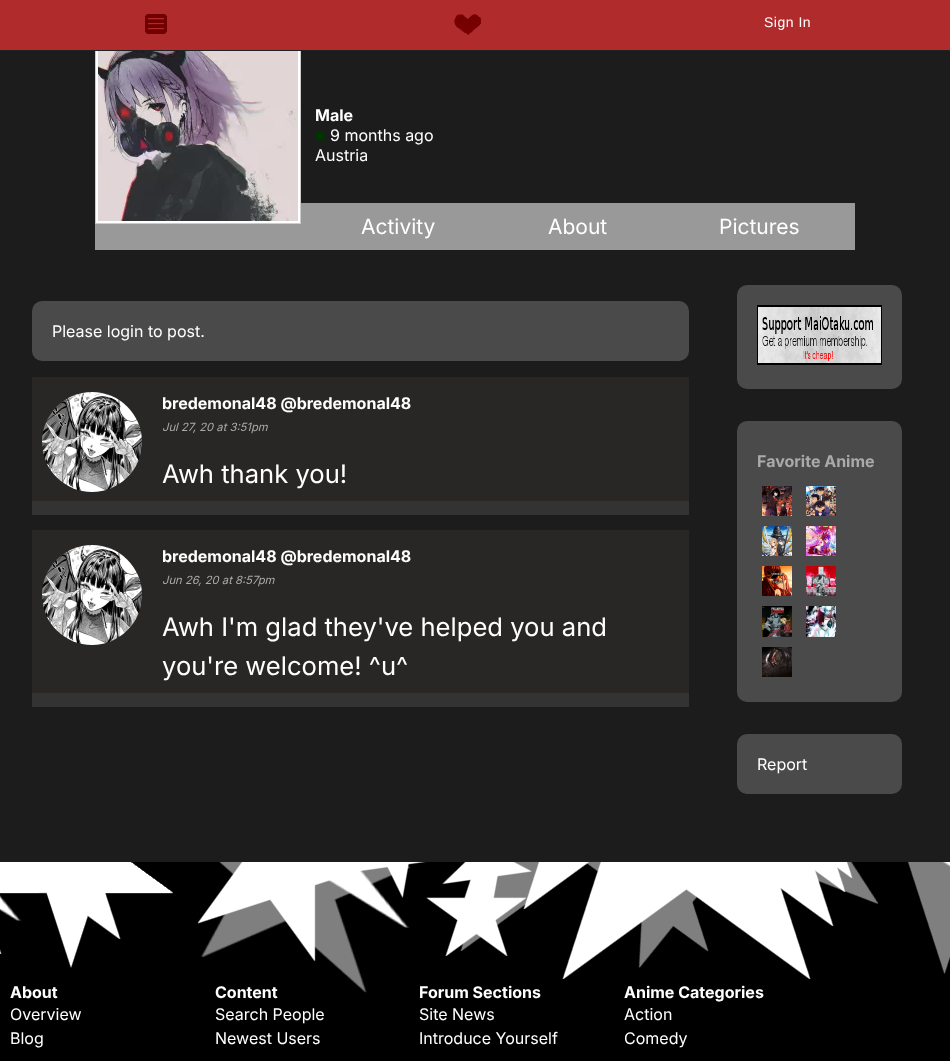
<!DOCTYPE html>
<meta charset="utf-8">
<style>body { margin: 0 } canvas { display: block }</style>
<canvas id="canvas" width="950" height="1061"></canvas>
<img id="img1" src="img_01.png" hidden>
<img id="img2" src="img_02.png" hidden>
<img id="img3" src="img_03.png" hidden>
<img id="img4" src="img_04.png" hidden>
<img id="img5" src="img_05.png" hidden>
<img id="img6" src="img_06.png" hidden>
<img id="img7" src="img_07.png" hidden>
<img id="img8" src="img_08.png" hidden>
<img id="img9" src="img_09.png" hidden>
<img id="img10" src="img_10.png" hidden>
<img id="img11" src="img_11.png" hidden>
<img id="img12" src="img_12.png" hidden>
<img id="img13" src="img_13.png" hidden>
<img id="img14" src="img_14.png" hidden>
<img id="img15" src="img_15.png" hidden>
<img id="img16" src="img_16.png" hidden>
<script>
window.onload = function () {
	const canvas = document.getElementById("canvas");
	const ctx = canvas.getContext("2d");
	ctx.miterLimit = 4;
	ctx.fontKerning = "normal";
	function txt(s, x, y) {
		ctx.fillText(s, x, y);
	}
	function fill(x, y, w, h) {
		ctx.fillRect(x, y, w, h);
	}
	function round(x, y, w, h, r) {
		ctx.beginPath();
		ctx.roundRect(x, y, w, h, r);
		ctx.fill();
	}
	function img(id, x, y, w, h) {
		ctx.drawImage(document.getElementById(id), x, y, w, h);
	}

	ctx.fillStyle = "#000000";
	fill(0, 0, 950, 1061);
	ctx.fillStyle = "#1D1C1C";
	fill(0, 51, 950, 811);
	ctx.fillStyle = "#999999";
	fill(95, 203, 760, 47);
	ctx.fillStyle = "#FFFFFF";
	fill(96, 51, 204, 172);
	ctx.strokeStyle = "#CCCCCC";
	ctx.strokeRect(95.5, 18.5, 205, 205);
	ctx.fillStyle = "#B02B2C";
	fill(0, 0, 950, 50);
	ctx.fillStyle = "#222222";
	fill(0, 50, 950, 1);
	img("img1", 145, 14, 22, 20);
	img("img2", 454, 14, 27, 21);
	img("img3", 98, 51, 200, 170);
	ctx.fillStyle = "#003300";
	ctx.beginPath();
	ctx.arc(320, 136, 5, 0, Math.PI * 2);
	ctx.fill();
	ctx.fillStyle = "#4A4A4A";
	round(32, 301, 657, 60, 10);
	ctx.fillStyle = "#282725";
	fill(32, 377, 657, 124);
	img("img4", 42, 392, 100, 100);
	ctx.fillStyle = "#333333";
	fill(32, 501, 657, 14);
	ctx.fillStyle = "#282725";
	fill(32, 530, 657, 163);
	img("img5", 42, 545, 100, 100);
	ctx.fillStyle = "#333333";
	fill(32, 693, 657, 14);
	ctx.fillStyle = "#4A4A4A";
	round(737, 285, 165, 104, 10);
	img("img6", 757, 305, 125, 60);
	round(737, 421, 165, 281, 10);
	img("img7", 762, 486, 30, 30);
	img("img8", 806, 486, 30, 30);
	img("img9", 762, 526, 30, 30);
	img("img10", 806, 526, 30, 30);
	img("img11", 762, 566, 30, 30);
	img("img12", 806, 566, 30, 30);
	img("img13", 762, 606, 30, 31);
	img("img14", 806, 606, 30, 31);
	img("img15", 762, 647, 30, 30);
	round(737, 734, 165, 60, 10);
	img("img16", 0, 862, 950, 131);
	ctx.letterSpacing = "0.5px";
	ctx.font = "14px Liberation Sans";
	ctx.fillStyle = "#FFFFFF";
	txt("Sign In", 764, 27);
	ctx.letterSpacing = "0px";
	ctx.font = "bold 16px Inter";
	txt("Male", 315, 121);
	ctx.font = "16px Inter";
	txt("9 months ago", 330, 141);
	txt("Austria", 315, 161);
	ctx.font = "21px Inter";
	txt("Activity", 361, 234);
	txt("About", 548, 234);
	txt("Pictures", 719, 234);
	ctx.font = "16px Inter";
	txt("Please login to post.", 52, 337);
	ctx.font = "bold 16px Inter";
	txt("bredemonal48 @bredemonal48", 162, 409);
	ctx.font = "italic 11.25px Inter";
	ctx.fillStyle = "#AAAAAA";
	txt("Jul 27, 20 at 3:51pm", 162, 431);
	ctx.font = "25.6px Inter";
	ctx.fillStyle = "#FFFFFF";
	txt("Awh thank you!", 162, 483);
	ctx.font = "bold 16px Inter";
	txt("bredemonal48 @bredemonal48", 162, 562);
	ctx.font = "italic 11.25px Inter";
	ctx.fillStyle = "#AAAAAA";
	txt("Jun 26, 20 at 8:57pm", 162, 584);
	ctx.font = "25.6px Inter";
	ctx.fillStyle = "#FFFFFF";
	txt("Awh I'm glad they've helped you and", 162, 636);
	txt("you're welcome! ^u^", 162, 675);
	ctx.font = "bold 16px Inter";
	ctx.fillStyle = "#AAAAAA";
	txt("Favorite Anime", 757, 467);
	ctx.font = "16px Inter";
	ctx.fillStyle = "#FFFFFF";
	txt("Report", 757, 770);
	ctx.font = "bold 16px Inter";
	txt("About", 10, 998);
	ctx.font = "16px Inter";
	txt("Overview", 10, 1020);
	txt("Blog", 10, 1044);
	ctx.font = "bold 16px Inter";
	txt("Content", 215, 998);
	ctx.font = "16px Inter";
	txt("Search People", 215, 1020);
	txt("Newest Users", 215, 1044);
	ctx.font = "bold 16px Inter";
	txt("Forum Sections", 419, 998);
	ctx.font = "16px Inter";
	txt("Site News", 419, 1020);
	txt("Introduce Yourself", 419, 1044);
	ctx.font = "bold 16px Inter";
	txt("Anime Categories", 624, 998);
	ctx.font = "16px Inter";
	txt("Action", 624, 1020);
	txt("Comedy", 624, 1044);
};
</script>
